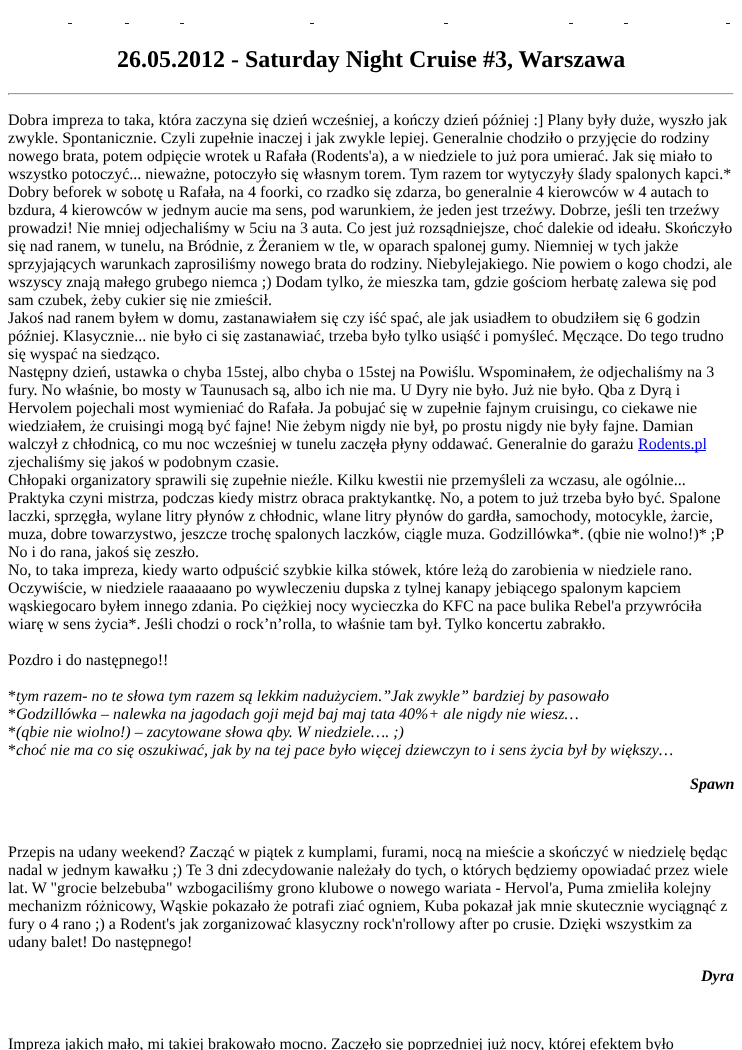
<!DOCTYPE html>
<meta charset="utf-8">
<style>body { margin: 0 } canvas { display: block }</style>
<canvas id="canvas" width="742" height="1050"></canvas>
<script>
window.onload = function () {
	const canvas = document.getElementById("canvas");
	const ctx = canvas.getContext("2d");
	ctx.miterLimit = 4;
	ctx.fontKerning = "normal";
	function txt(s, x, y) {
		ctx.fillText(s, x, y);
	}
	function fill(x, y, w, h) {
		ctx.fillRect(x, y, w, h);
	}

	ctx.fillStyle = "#FFFFFF";
	fill(0, 0, 742, 1050);
	ctx.fillStyle = "#0000EE";
	fill(68, 23, 4, 1);
	fill(125, 23, 4, 1);
	fill(180, 23, 4, 1);
	fill(310, 23, 4, 1);
	fill(444, 23, 4, 1);
	fill(569, 23, 4, 1);
	fill(624, 23, 4, 1);
	fill(726, 23, 4, 1);
	ctx.fillStyle = "#9F9F9F";
	fill(8, 93, 726, 1);
	ctx.fillStyle = "#EEEEEE";
	fill(733, 93, 1, 2);
	fill(8, 94, 726, 1);
	ctx.fillStyle = "#9F9F9F";
	fill(8, 93, 1, 2);
	ctx.fillStyle = "#0000EE";
	fill(638, 450, 68, 1);
	ctx.font = "bold 24px Liberation Serif";
	ctx.fillStyle = "#000000";
	txt("26.05.2012 - Saturday Night Cruise #3, Warszawa", 117, 67);
	ctx.font = "16px Liberation Serif";
	txt("Dobra impreza to taka, która zaczyna się dzień wcześniej, a kończy dzień później :] Plany były duże, wyszło jak", 8, 125);
	txt("zwykle. Spontanicznie. Czyli zupełnie inaczej i jak zwykle lepiej. Generalnie chodziło o przyjęcie do rodziny", 8, 143);
	txt("nowego brata, potem odpięcie wrotek u Rafała (Rodents'a), a w niedziele to już pora umierać. Jak się miało to", 8, 161);
	txt("wszystko potoczyć... nieważne, potoczyło się własnym torem. Tym razem tor wytyczyły ślady spalonych kapci.*", 8, 179);
	txt("Dobry beforek w sobotę u Rafała, na 4 foorki, co rzadko się zdarza, bo generalnie 4 kierowców w 4 autach to", 8, 197);
	txt("bzdura, 4 kierowców w jednym aucie ma sens, pod warunkiem, że jeden jest trzeźwy. Dobrze, jeśli ten trzeźwy", 8, 215);
	txt("prowadzi! Nie mniej odjechaliśmy w 5ciu na 3 auta. Co jest już rozsądniejsze, choć dalekie od ideału. Skończyło", 8, 233);
	txt("się nad ranem, w tunelu, na Bródnie, z Żeraniem w tle, w oparach spalonej gumy. Niemniej w tych jakże", 8, 251);
	txt("sprzyjających warunkach zaprosiliśmy nowego brata do rodziny. Niebylejakiego. Nie powiem o kogo chodzi, ale", 8, 269);
	txt("wszyscy znają małego grubego niemca ;) Dodam tylko, że mieszka tam, gdzie gościom herbatę zalewa się pod", 8, 287);
	txt("sam czubek, żeby cukier się nie zmieścił.", 8, 305);
	txt("Jakoś nad ranem byłem w domu, zastanawiałem się czy iść spać, ale jak usiadłem to obudziłem się 6 godzin", 8, 323);
	txt("później. Klasycznie... nie było ci się zastanawiać, trzeba było tylko usiąść i pomyśleć. Męczące. Do tego trudno", 8, 341);
	txt("się wyspać na siedząco.", 8, 359);
	txt("Następny dzień, ustawka o chyba 15stej, albo chyba o 15stej na Powiślu. Wspominałem, że odjechaliśmy na 3", 8, 377);
	txt("fury. No właśnie, bo mosty w Taunusach są, albo ich nie ma. U Dyry nie było. Już nie było. Qba z Dyrą i", 8, 395);
	txt("Hervolem pojechali most wymieniać do Rafała. Ja pobujać się w zupełnie fajnym cruisingu, co ciekawe nie", 8, 413);
	txt("wiedziałem, że cruisingi mogą być fajne! Nie żebym nigdy nie był, po prostu nigdy nie były fajne. Damian", 8, 431);
	txt("walczył z chłodnicą, co mu noc wcześniej w tunelu zaczęła płyny oddawać. Generalnie do garażu", 8, 449);
	ctx.fillStyle = "#0000EE";
	txt("Rodents.pl", 638, 449);
	ctx.fillStyle = "#000000";
	txt("zjechaliśmy się jakoś w podobnym czasie.", 8, 467);
	txt("Chłopaki organizatory sprawili się zupełnie nieźle. Kilku kwestii nie przemyśleli za wczasu, ale ogólnie...", 8, 485);
	txt("Praktyka czyni mistrza, podczas kiedy mistrz obraca praktykantkę. No, a potem to już trzeba było być. Spalone", 8, 503);
	txt("laczki, sprzęgła, wylane litry płynów z chłodnic, wlane litry płynów do gardła, samochody, motocykle, żarcie,", 8, 521);
	txt("muza, dobre towarzystwo, jeszcze trochę spalonych laczków, ciągle muza. Godzillówka*. (qbie nie wolno!)* ;P", 8, 539);
	txt("No i do rana, jakoś się zeszło.", 8, 557);
	txt("No, to taka impreza, kiedy warto odpuścić szybkie kilka stówek, które leżą do zarobienia w niedziele rano.", 8, 575);
	txt("Oczywiście, w niedziele raaaaaano po wywleczeniu dupska z tylnej kanapy jebiącego spalonym kapciem", 8, 593);
	txt("wąskiegocaro byłem innego zdania. Po ciężkiej nocy wycieczka do KFC na pace bulika Rebel'a przywróciła", 8, 611);
	txt("wiarę w sens życia*. Jeśli chodzi o rock’n’rolla, to właśnie tam był. Tylko koncertu zabrakło.", 8, 629);
	txt("Pozdro i do następnego!!", 8, 665);
	txt("*", 8, 701);
	ctx.font = "italic 16px Liberation Serif";
	txt("tym razem- no te słowa tym razem są lekkim nadużyciem.”Jak zwykle” bardziej by pasowało", 16, 701);
	ctx.font = "16px Liberation Serif";
	txt("*", 8, 719);
	ctx.font = "italic 16px Liberation Serif";
	txt("Godzillówka – nalewka na jagodach goji mejd baj maj tata 40%+ ale nigdy nie wiesz…", 16, 719);
	ctx.font = "16px Liberation Serif";
	txt("*", 8, 737);
	ctx.font = "italic 16px Liberation Serif";
	txt("(qbie nie wiolno!) – zacytowane słowa qby. W niedziele…. ;)", 16, 737);
	ctx.font = "16px Liberation Serif";
	txt("*", 8, 755);
	ctx.font = "italic 16px Liberation Serif";
	txt("choć nie ma co się oszukiwać, jak by na tej pace było więcej dziewczyn to i sens życia był by większy…", 16, 755);
	ctx.font = "italic bold 16px Liberation Serif";
	txt("Spawn", 690, 789);
	ctx.font = "16px Liberation Serif";
	txt("Przepis na udany weekend? Zacząć w piątek z kumplami, furami, nocą na mieście a skończyć w niedzielę będąc", 8, 857);
	txt("nadal w jednym kawałku ;) Te 3 dni zdecydowanie należały do tych, o których będziemy opowiadać przez wiele", 8, 875);
	txt("lat. W \"grocie belzebuba\" wzbogaciliśmy grono klubowe o nowego wariata - Hervol'a, Puma zmieliła kolejny", 8, 893);
	txt("mechanizm różnicowy, Wąskie pokazało że potrafi ziać ogniem, Kuba pokazał jak mnie skutecznie wyciągnąć z", 8, 911);
	txt("fury o 4 rano ;) a Rodent's jak zorganizować klasyczny rock'n'rollowy after po crusie. Dzięki wszystkim za", 8, 929);
	txt("udany balet! Do następnego!", 8, 947);
	ctx.font = "italic bold 16px Liberation Serif";
	txt("Dyra", 701, 981);
	ctx.font = "16px Liberation Serif";
	txt("Impreza jakich mało, mi takiej brakowało mocno. Zaczęło się poprzedniej już nocy, której efektem było", 8, 1049);
};
</script>
